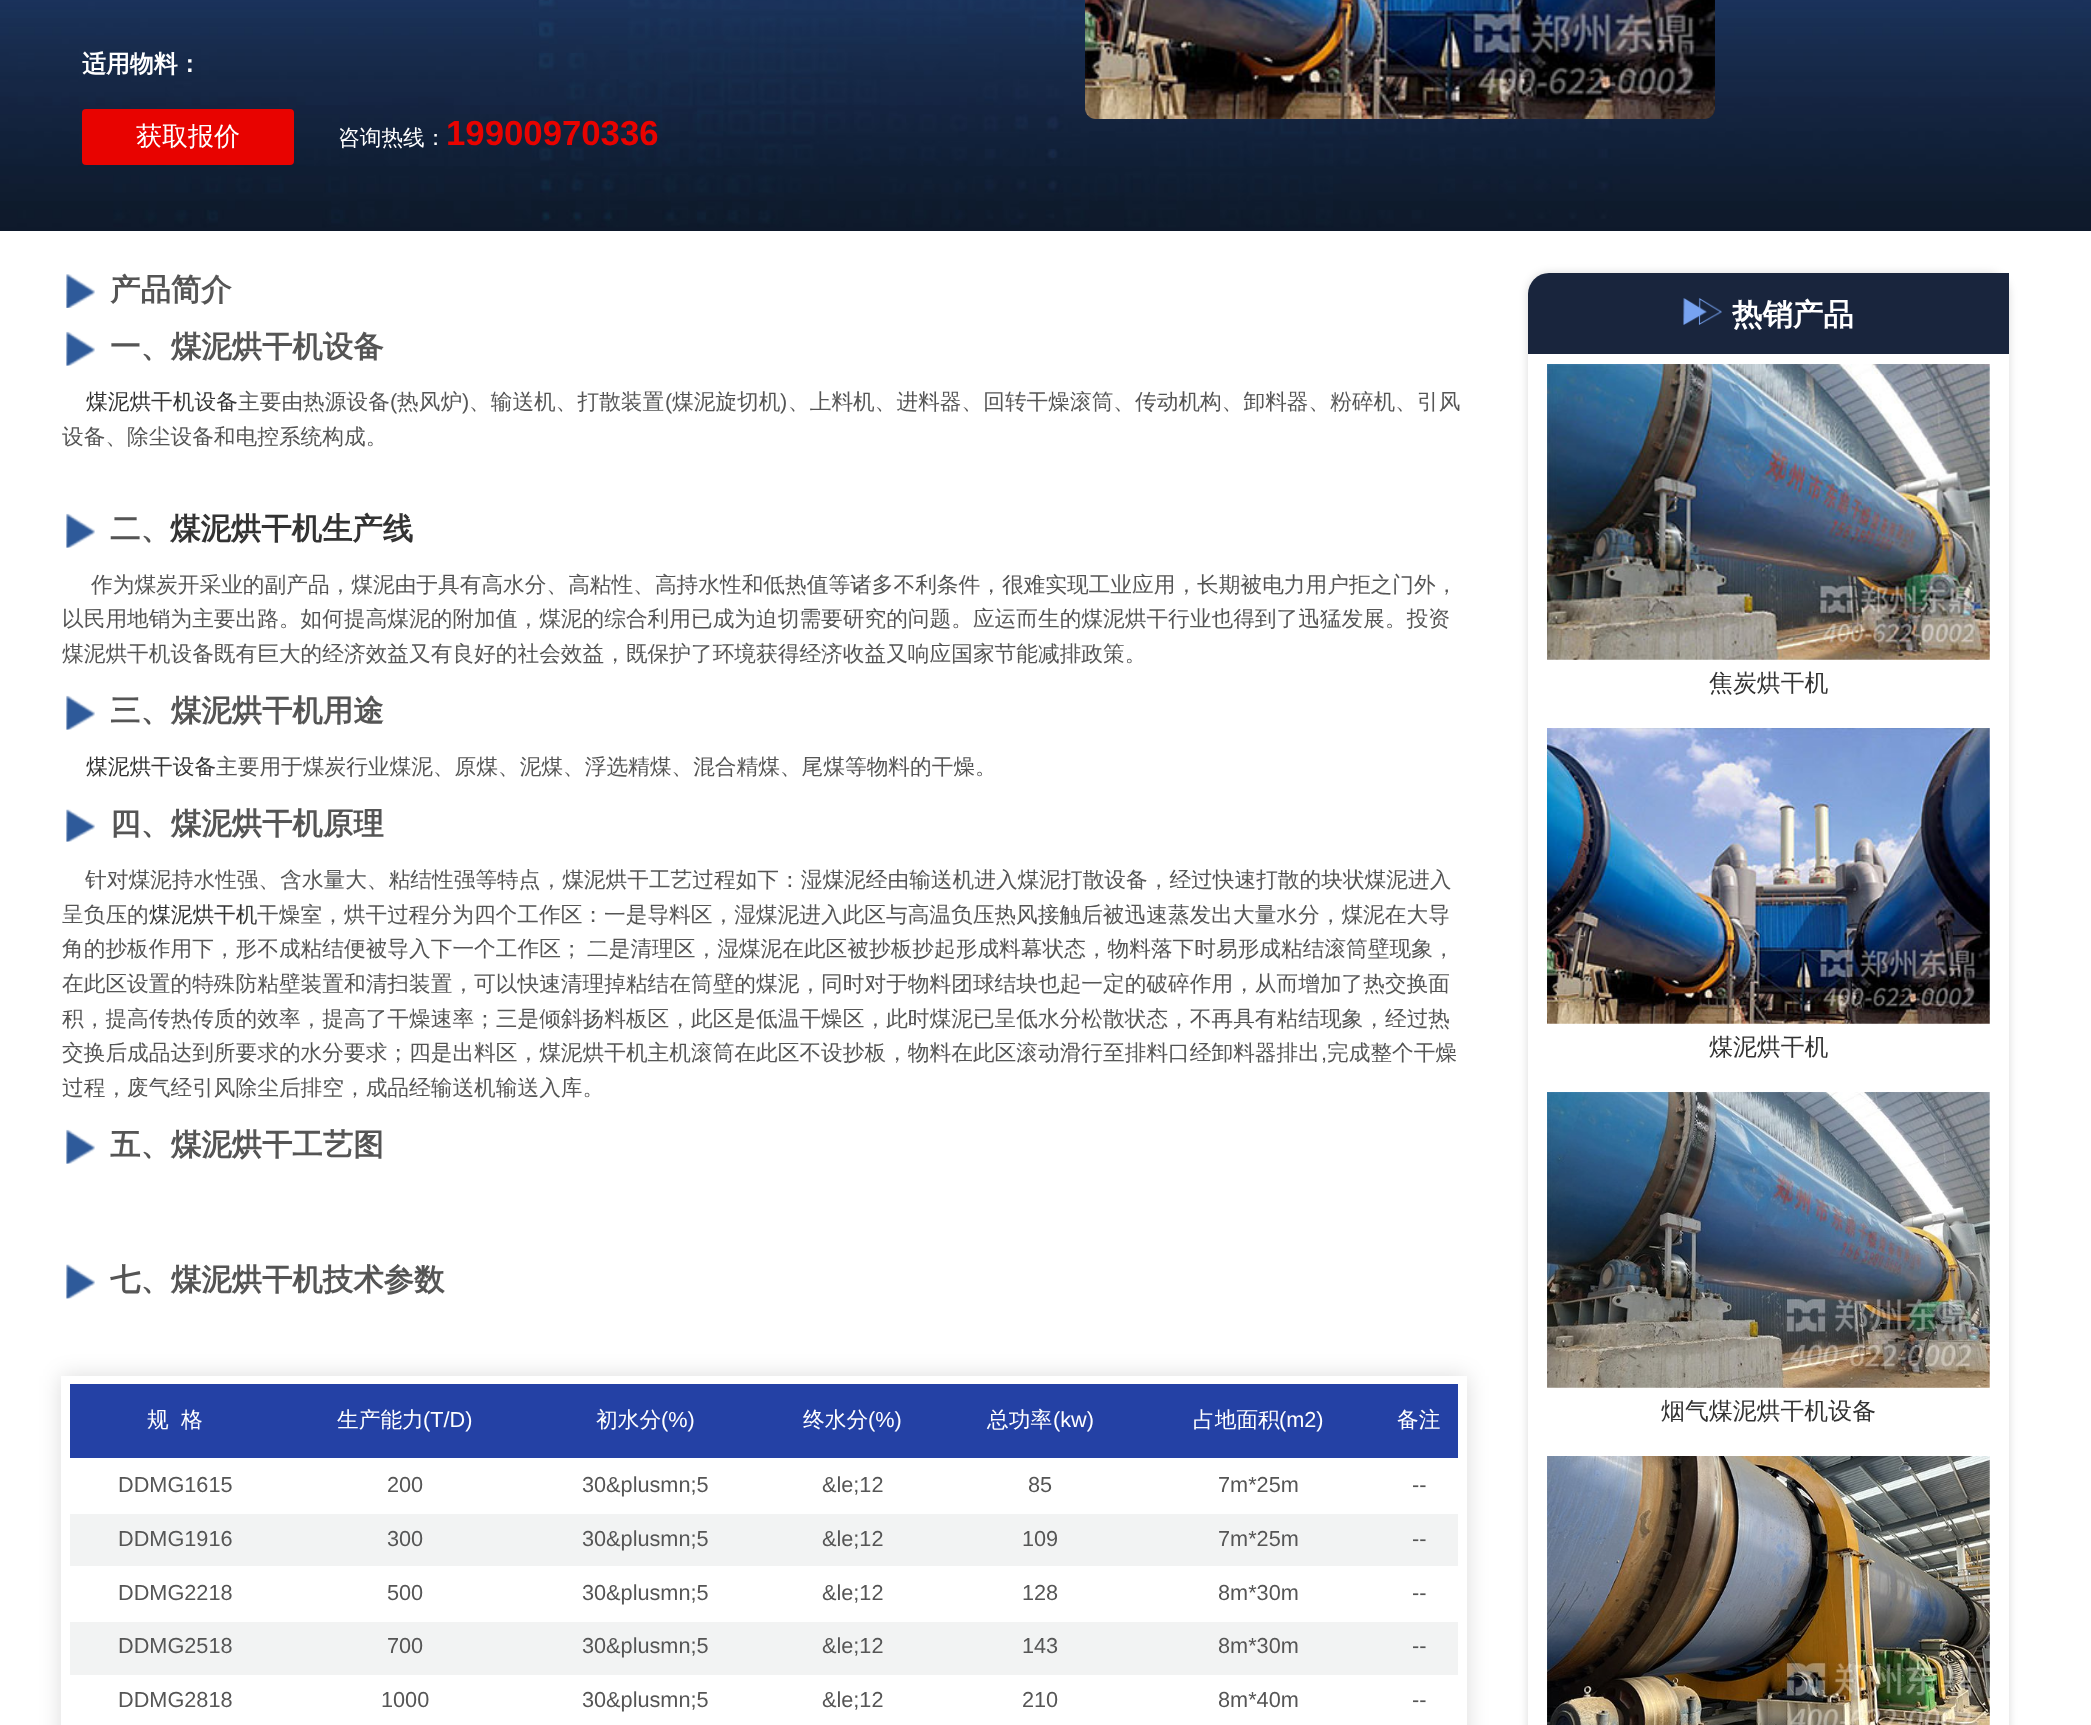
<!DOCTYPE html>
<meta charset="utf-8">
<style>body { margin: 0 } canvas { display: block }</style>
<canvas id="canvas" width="2091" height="1725"></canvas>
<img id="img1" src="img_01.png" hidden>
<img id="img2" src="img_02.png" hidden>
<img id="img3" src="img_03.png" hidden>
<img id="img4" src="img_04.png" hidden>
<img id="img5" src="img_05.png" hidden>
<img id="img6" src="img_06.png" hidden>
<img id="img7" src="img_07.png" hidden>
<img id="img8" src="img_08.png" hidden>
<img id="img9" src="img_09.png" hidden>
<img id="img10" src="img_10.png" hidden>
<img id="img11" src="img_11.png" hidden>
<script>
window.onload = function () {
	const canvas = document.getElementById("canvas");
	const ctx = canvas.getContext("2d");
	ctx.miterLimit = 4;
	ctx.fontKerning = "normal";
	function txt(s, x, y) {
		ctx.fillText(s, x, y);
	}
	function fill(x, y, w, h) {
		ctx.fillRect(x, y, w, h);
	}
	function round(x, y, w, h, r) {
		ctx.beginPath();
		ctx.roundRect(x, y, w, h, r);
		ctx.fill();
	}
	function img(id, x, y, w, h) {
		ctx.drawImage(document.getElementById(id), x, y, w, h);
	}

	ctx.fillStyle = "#FFFFFF";
	fill(0, 0, 2091, 1725);
	img("img1", 0, 0, 2091, 231);
	ctx.fillStyle = "#E80300";
	round(82, 109, 212, 56, 4);
	img("img2", 1085, 0, 630, 119);
	img("img3", 66, 274, 29, 34);
	img("img4", 66, 331, 29, 35);
	img("img4", 66, 513, 29, 35);
	img("img4", 66, 695, 29, 35);
	img("img5", 66, 809, 29, 33);
	img("img4", 66, 1129, 29, 35);
	img("img6", 66, 1264, 29, 35);
	ctx.fillStyle = "rgba(0, 0, 0, 0.14)";
	ctx.filter = "blur(11px)";
	ctx.beginPath();
	ctx.rect(61, 1376, 1406, 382);
	ctx.fill();
	ctx.filter = "none";
	ctx.fillStyle = "#FFFFFF";
	fill(61, 1376, 1406, 349);
	ctx.fillStyle = "#2441A5";
	fill(70, 1384, 1388, 74);
	ctx.fillStyle = "#F2F3F3";
	fill(70, 1514, 1388, 52);
	fill(70, 1622, 1388, 53);
	ctx.save();
	ctx.beginPath();
	ctx.moveTo(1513, 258);
	ctx.lineTo(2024, 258);
	ctx.lineTo(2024, 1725);
	ctx.lineTo(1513, 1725);
	ctx.closePath();
	ctx.moveTo(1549, 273);
	ctx.lineTo(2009, 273);
	ctx.lineTo(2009, 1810);
	ctx.lineTo(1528, 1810);
	ctx.lineTo(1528, 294);
	ctx.bezierCurveTo(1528, 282.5, 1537.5, 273, 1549, 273);
	ctx.closePath();
	ctx.clip("evenodd");
	ctx.fillStyle = "rgba(0, 0, 0, 0.15)";
	ctx.filter = "blur(4.5px)";
	ctx.beginPath();
	ctx.roundRect(1528, 273, 481, 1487, 21);
	ctx.fill();
	ctx.filter = "none";
	ctx.restore();
	ctx.fillStyle = "#19253D";
	ctx.beginPath();
	ctx.roundRect(1528, 273, 481, 81, [21, 0, 0, 0]);
	ctx.fill();
	img("img7", 1683, 298, 39, 27);
	img("img8", 1547, 364, 443, 296);
	img("img9", 1547, 728, 443, 296);
	img("img10", 1547, 1092, 443, 296);
	img("img11", 1547, 1456, 443, 269);
	ctx.font = "bold 23.9px WenQuanYi Zen Hei";
	ctx.fillStyle = "#FFFFFF";
	txt("适用物料：", 82, 72);
	ctx.font = "500 26px WenQuanYi Zen Hei";
	txt("获取报价", 136, 145);
	ctx.font = "500 21.7px WenQuanYi Zen Hei";
	txt("咨询热线：", 338, 145);
	ctx.font = "bold 34.75px Liberation Sans";
	ctx.fillStyle = "#E80300";
	txt("19900970336", 446, 145);
	ctx.font = "bold 30.4px WenQuanYi Zen Hei";
	ctx.fillStyle = "#555555";
	txt("产品简介", 110, 300);
	txt("一、煤泥烘干机设备", 110, 357);
	ctx.font = "500 21.7px WenQuanYi Zen Hei";
	ctx.fillStyle = "#333333";
	txt("煤泥烘干机设备", 86, 409);
	ctx.fillStyle = "#555555";
	txt("主要由热源设备", 238, 409);
	ctx.font = "21.7px Liberation Sans";
	txt("(", 390, 409);
	ctx.font = "500 21.7px WenQuanYi Zen Hei";
	txt("热风炉", 397, 409);
	ctx.font = "21.7px Liberation Sans";
	txt(")", 462, 409);
	ctx.font = "500 21.7px WenQuanYi Zen Hei";
	txt("、输送机、打散装置", 469, 409);
	ctx.font = "21.7px Liberation Sans";
	txt("(", 665, 409);
	ctx.font = "500 21.7px WenQuanYi Zen Hei";
	txt("煤泥旋切机", 672, 409);
	ctx.font = "21.7px Liberation Sans";
	txt(")", 780, 409);
	ctx.font = "500 21.7px WenQuanYi Zen Hei";
	txt("、上料机、进料器、回转干燥滚筒、传动机构、卸料器、粉碎机、引风", 788, 409);
	txt("设备、除尘设备和电控系统构成。", 62, 444);
	ctx.font = "bold 30.4px WenQuanYi Zen Hei";
	txt("二、", 110, 539);
	ctx.fillStyle = "#333333";
	txt("煤泥烘干机生产线", 170, 539);
	ctx.font = "500 21.7px WenQuanYi Zen Hei";
	ctx.fillStyle = "#555555";
	txt("作为煤炭开采业的副产品，煤泥由于具有高水分、高粘性、高持水性和低热值等诸多不利条件，很难实现工业应用，长期被电力用户拒之门外，", 91, 592);
	txt("以民用地销为主要出路。如何提高煤泥的附加值，煤泥的综合利用已成为迫切需要研究的问题。应运而生的煤泥烘干行业也得到了迅猛发展。投资", 62, 626);
	txt("煤泥烘干机设备既有巨大的经济效益又有良好的社会效益，既保护了环境获得经济收益又响应国家节能减排政策。", 62, 661);
	ctx.font = "bold 30.4px WenQuanYi Zen Hei";
	txt("三、煤泥烘干机用途", 110, 721);
	ctx.font = "500 21.7px WenQuanYi Zen Hei";
	ctx.fillStyle = "#333333";
	txt("煤泥烘干设备", 86, 774);
	ctx.fillStyle = "#555555";
	txt("主要用于煤炭行业煤泥、原煤、泥煤、浮选精煤、混合精煤、尾煤等物料的干燥。", 216, 774);
	ctx.font = "bold 30.4px WenQuanYi Zen Hei";
	txt("四、煤泥烘干机原理", 110, 834);
	ctx.font = "500 21.7px WenQuanYi Zen Hei";
	txt("针对煤泥持水性强、含水量大、粘结性强等特点，煤泥烘干工艺过程如下：湿煤泥经由输送机进入煤泥打散设备，经过快速打散的块状煤泥进入", 85, 887);
	txt("呈负压的", 62, 922);
	ctx.fillStyle = "#333333";
	txt("煤泥烘干机", 149, 922);
	ctx.fillStyle = "#555555";
	txt("干燥室，烘干过程分为四个工作区：一是导料区，湿煤泥进入此区与高温负压热风接触后被迅速蒸发出大量水分，煤泥在大导", 257, 922);
	ctx.wordSpacing = "-2px";
	txt("角的抄板作用下，形不成粘结便被导入下一个工作区； 二是清理区，湿煤泥在此区被抄板抄起形成料幕状态，物料落下时易形成粘结滚筒壁现象，", 62, 956);
	ctx.wordSpacing = "0px";
	txt("在此区设置的特殊防粘壁装置和清扫装置，可以快速清理掉粘结在筒壁的煤泥，同时对于物料团球结块也起一定的破碎作用，从而增加了热交换面", 62, 991);
	txt("积，提高传热传质的效率，提高了干燥速率；三是倾斜扬料板区，此区是低温干燥区，此时煤泥已呈低水分松散状态，不再具有粘结现象，经过热", 62, 1026);
	txt("交换后成品达到所要求的水分要求；四是出料区，煤泥烘干机主机滚筒在此区不设抄板，物料在此区滚动滑行至排料口经卸料器排出", 62, 1060);
	ctx.font = "21.7px Liberation Sans";
	txt(",", 1321, 1060);
	ctx.font = "500 21.7px WenQuanYi Zen Hei";
	txt("完成整个干燥", 1327, 1060);
	txt("过程，废气经引风除尘后排空，成品经输送机输送入库。", 62, 1095);
	ctx.font = "bold 30.4px WenQuanYi Zen Hei";
	txt("五、煤泥烘干工艺图", 110, 1155);
	txt("七、煤泥烘干机技术参数", 110, 1290);
	ctx.font = "500 21.7px WenQuanYi Zen Hei";
	ctx.fillStyle = "#FFFFFF";
	txt("规", 147, 1427);
	txt("格", 181, 1427);
	txt("生产能力", 337, 1427);
	ctx.font = "21.7px Liberation Sans";
	txt("(T/D)", 423, 1427);
	ctx.font = "500 21.7px WenQuanYi Zen Hei";
	txt("初水分", 596, 1427);
	ctx.font = "21.7px Liberation Sans";
	txt("(%)", 661, 1427);
	ctx.font = "500 21.7px WenQuanYi Zen Hei";
	txt("终水分", 803, 1427);
	ctx.font = "21.7px Liberation Sans";
	txt("(%)", 868, 1427);
	ctx.font = "500 21.7px WenQuanYi Zen Hei";
	txt("总功率", 987, 1427);
	ctx.font = "21.7px Liberation Sans";
	txt("(kw)", 1053, 1427);
	ctx.font = "500 21.7px WenQuanYi Zen Hei";
	txt("占地面积", 1193, 1427);
	ctx.font = "21.7px Liberation Sans";
	txt("(m2)", 1279, 1427);
	ctx.font = "500 21.7px WenQuanYi Zen Hei";
	txt("备注", 1397, 1427);
	ctx.font = "21.7px Liberation Sans";
	ctx.fillStyle = "#555555";
	txt("DDMG1615", 118, 1492);
	txt("200", 387, 1492);
	txt("30&plusmn;5", 582, 1492);
	txt("&le;12", 822, 1492);
	txt("85", 1028, 1492);
	txt("7m*25m", 1218, 1492);
	txt("--", 1412, 1492);
	txt("DDMG1916", 118, 1546);
	txt("300", 387, 1546);
	txt("30&plusmn;5", 582, 1546);
	txt("&le;12", 822, 1546);
	txt("109", 1022, 1546);
	txt("7m*25m", 1218, 1546);
	txt("--", 1412, 1546);
	txt("DDMG2218", 118, 1600);
	txt("500", 387, 1600);
	txt("30&plusmn;5", 582, 1600);
	txt("&le;12", 822, 1600);
	txt("128", 1022, 1600);
	txt("8m*30m", 1218, 1600);
	txt("--", 1412, 1600);
	txt("DDMG2518", 118, 1653);
	txt("700", 387, 1653);
	txt("30&plusmn;5", 582, 1653);
	txt("&le;12", 822, 1653);
	txt("143", 1022, 1653);
	txt("8m*30m", 1218, 1653);
	txt("--", 1412, 1653);
	txt("DDMG2818", 118, 1707);
	txt("1000", 381, 1707);
	txt("30&plusmn;5", 582, 1707);
	txt("&le;12", 822, 1707);
	txt("210", 1022, 1707);
	txt("8m*40m", 1218, 1707);
	txt("--", 1412, 1707);
	ctx.font = "bold 30.4px WenQuanYi Zen Hei";
	ctx.fillStyle = "#FFFFFF";
	txt("热销产品", 1732, 325);
	ctx.font = "500 23.9px WenQuanYi Zen Hei";
	ctx.fillStyle = "#333333";
	txt("焦炭烘干机", 1709, 691);
	txt("煤泥烘干机", 1709, 1055);
	txt("烟气煤泥烘干机设备", 1661, 1419);
};
</script>
